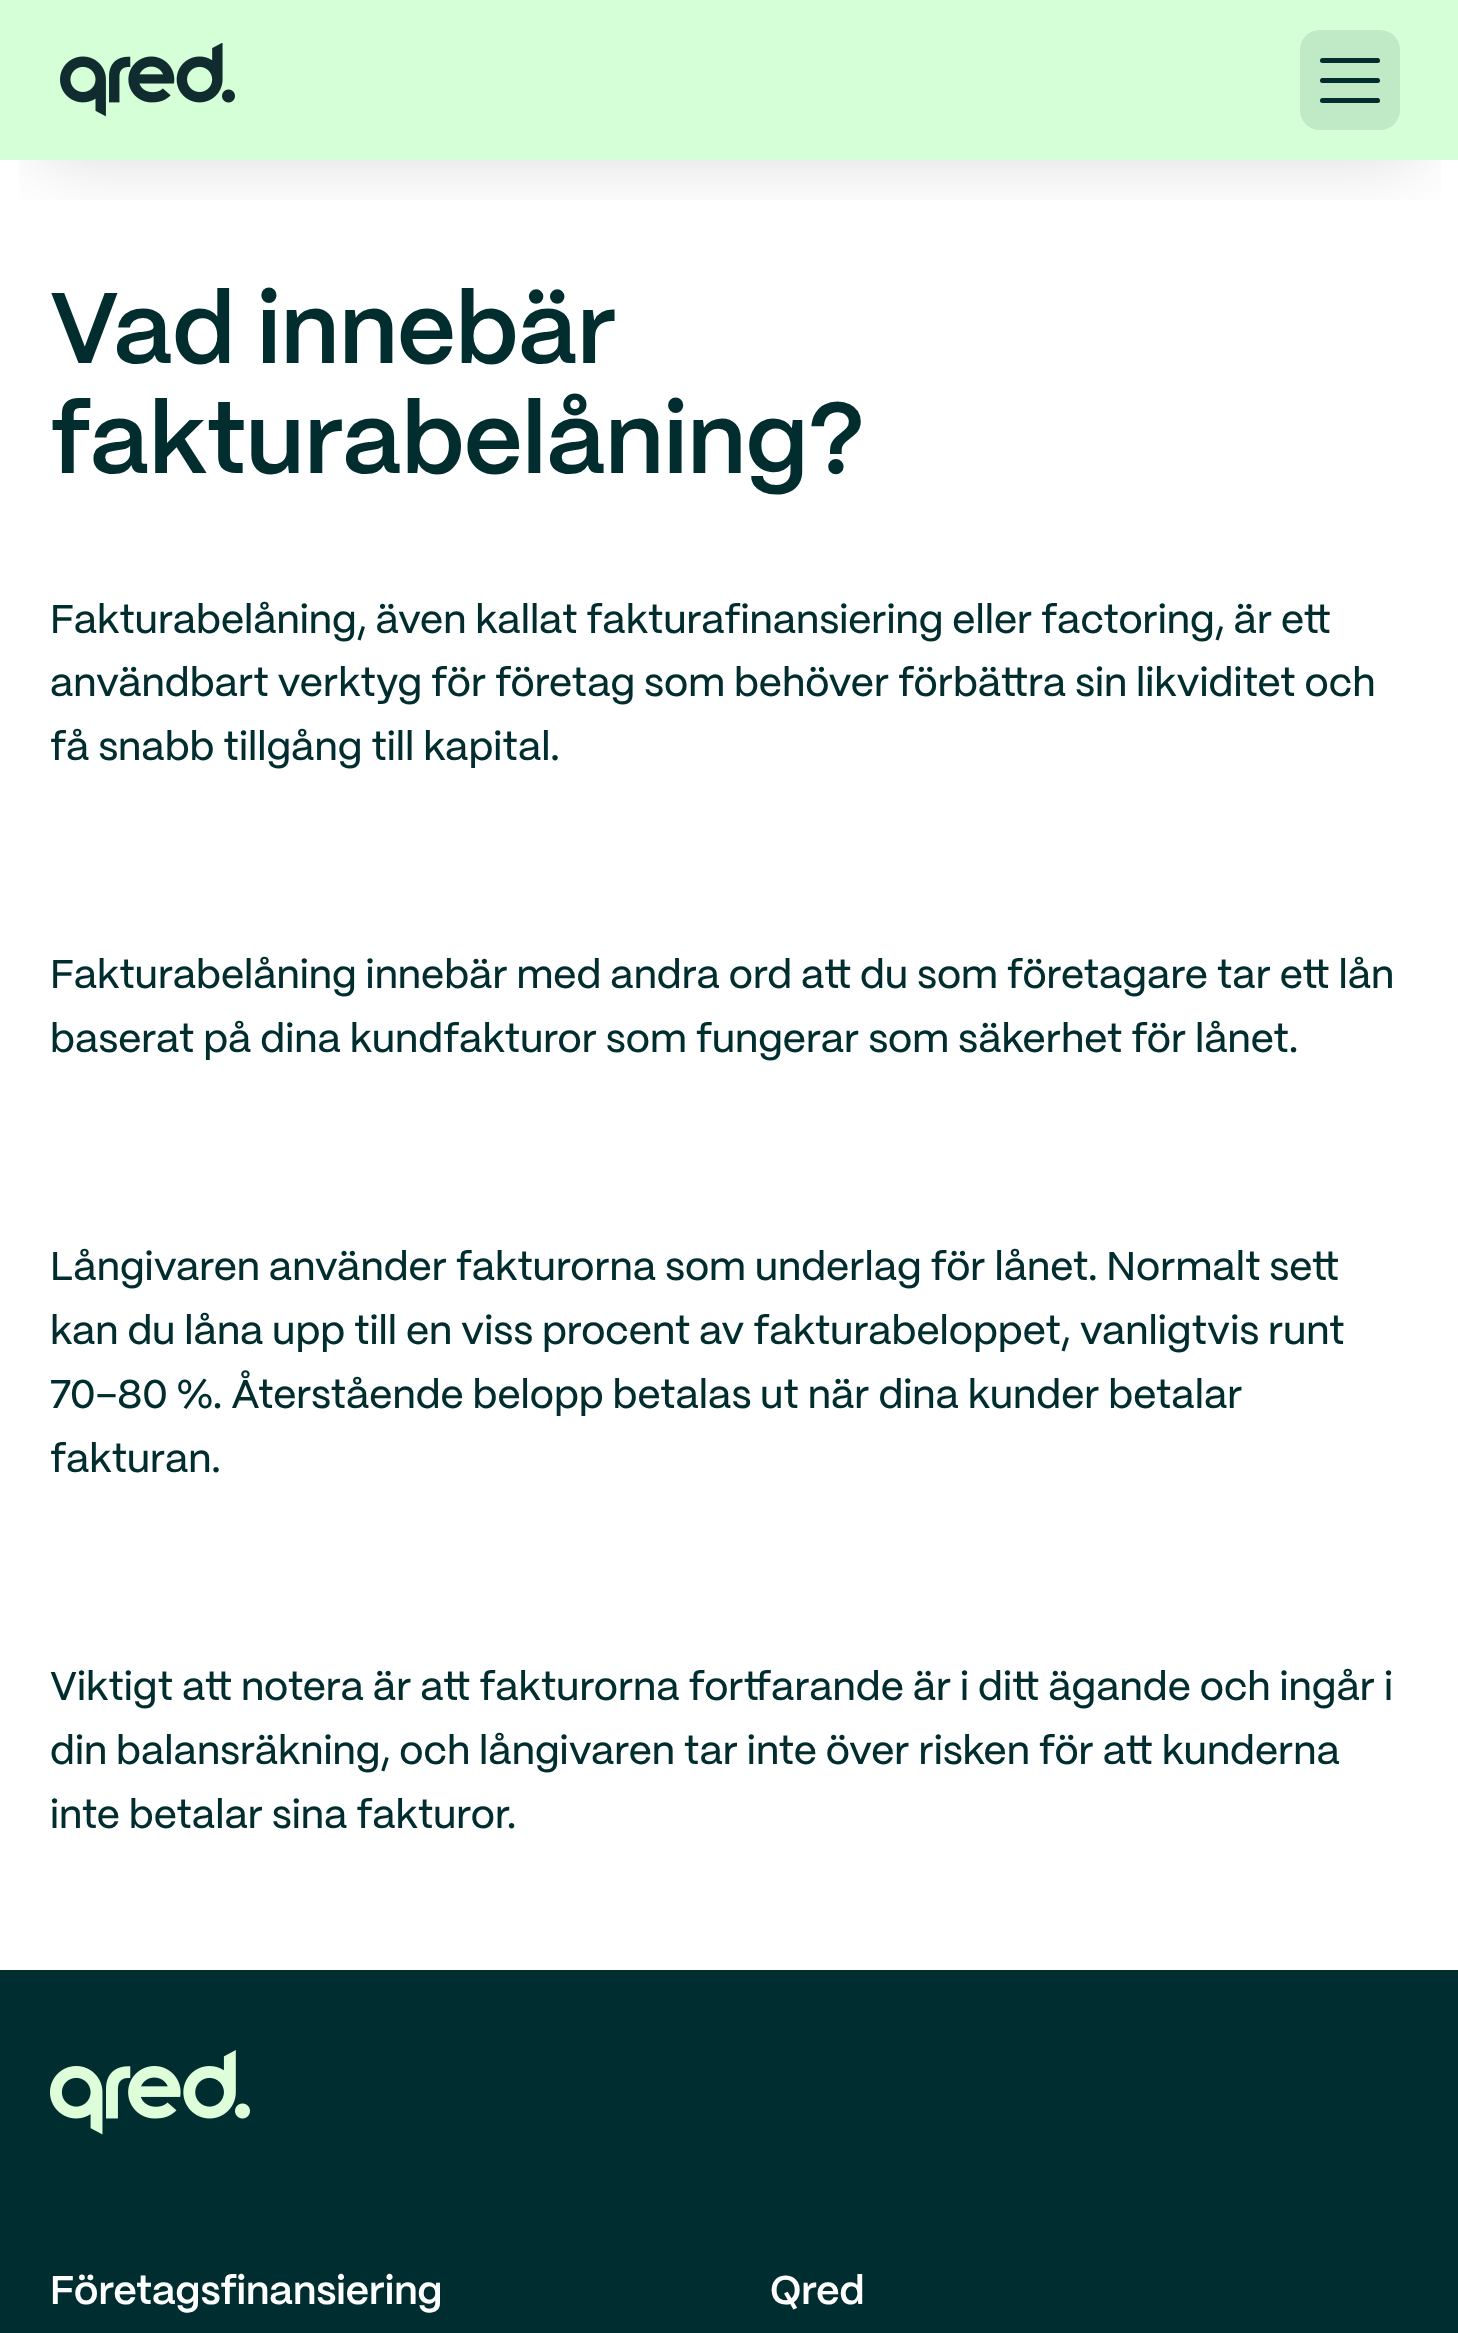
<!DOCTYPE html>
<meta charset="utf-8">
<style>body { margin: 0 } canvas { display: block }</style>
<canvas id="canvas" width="1458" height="2333"></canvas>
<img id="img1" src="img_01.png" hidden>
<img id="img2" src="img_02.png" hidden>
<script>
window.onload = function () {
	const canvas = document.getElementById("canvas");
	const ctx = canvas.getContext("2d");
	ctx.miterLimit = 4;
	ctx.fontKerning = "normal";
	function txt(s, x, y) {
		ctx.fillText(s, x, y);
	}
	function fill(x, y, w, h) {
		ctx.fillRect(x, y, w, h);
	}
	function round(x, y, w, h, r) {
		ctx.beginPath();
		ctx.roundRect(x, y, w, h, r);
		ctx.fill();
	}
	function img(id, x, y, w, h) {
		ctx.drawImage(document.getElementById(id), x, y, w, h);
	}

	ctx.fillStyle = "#FFFFFF";
	fill(0, 0, 1458, 2333);
	ctx.fillStyle = "#D5FFD6";
	fill(0, 0, 1458, 160);
	ctx.save();
	ctx.beginPath();
	ctx.rect(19, 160, 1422, 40);
	ctx.clip();
	ctx.fillStyle = "rgba(0, 0, 0, 0.15)";
	ctx.filter = "blur(37.5px)";
	ctx.beginPath();
	ctx.rect(40, 78, 1380, 80);
	ctx.fill();
	ctx.filter = "none";
	ctx.restore();
	img("img1", 60, 43, 175, 74);
	ctx.fillStyle = "#C0EAC5";
	round(1300, 30, 100, 100, 20);
	ctx.fillStyle = "#012D2F";
	round(1320, 58, 60, 5, 2.5);
	round(1320, 78, 60, 5, 2.5);
	round(1320, 98, 60, 5, 2.5);
	ctx.fillStyle = "#002D30";
	fill(0, 1970, 1458, 363);
	img("img2", 50, 2050, 200, 85);
	ctx.font = "600 100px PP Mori";
	ctx.fillStyle = "#012D2F";
	txt("Vad innebär", 50, 363);
	txt("fakturabelåning?", 50, 473);
	ctx.font = "500 40px PP Mori";
	txt("Fakturabelåning, även kallat fakturafinansiering eller factoring, är ett", 50, 633);
	txt("användbart verktyg för företag som behöver förbättra sin likviditet och", 50, 696);
	txt("få snabb tillgång till kapital.", 50, 760);
	txt("Fakturabelåning innebär med andra ord att du som företagare tar ett lån", 50, 988);
	txt("baserat på dina kundfakturor som fungerar som säkerhet för lånet.", 50, 1052);
	txt("Långivaren använder fakturorna som underlag för lånet. Normalt sett", 50, 1280);
	txt("kan du låna upp till en viss procent av fakturabeloppet, vanligtvis runt", 50, 1344);
	txt("70–80 %. Återstående belopp betalas ut när dina kunder betalar", 50, 1408);
	txt("fakturan.", 50, 1472);
	txt("Viktigt att notera är att fakturorna fortfarande är i ditt ägande och ingår i", 50, 1700);
	txt("din balansräkning, och långivaren tar inte över risken för att kunderna", 50, 1764);
	txt("inte betalar sina fakturor.", 50, 1828);
	ctx.font = "600 40px PP Mori";
	ctx.fillStyle = "#FFFFFF";
	txt("Företagsfinansiering", 50, 2304);
	txt("Qred", 770, 2304);
};
</script>
